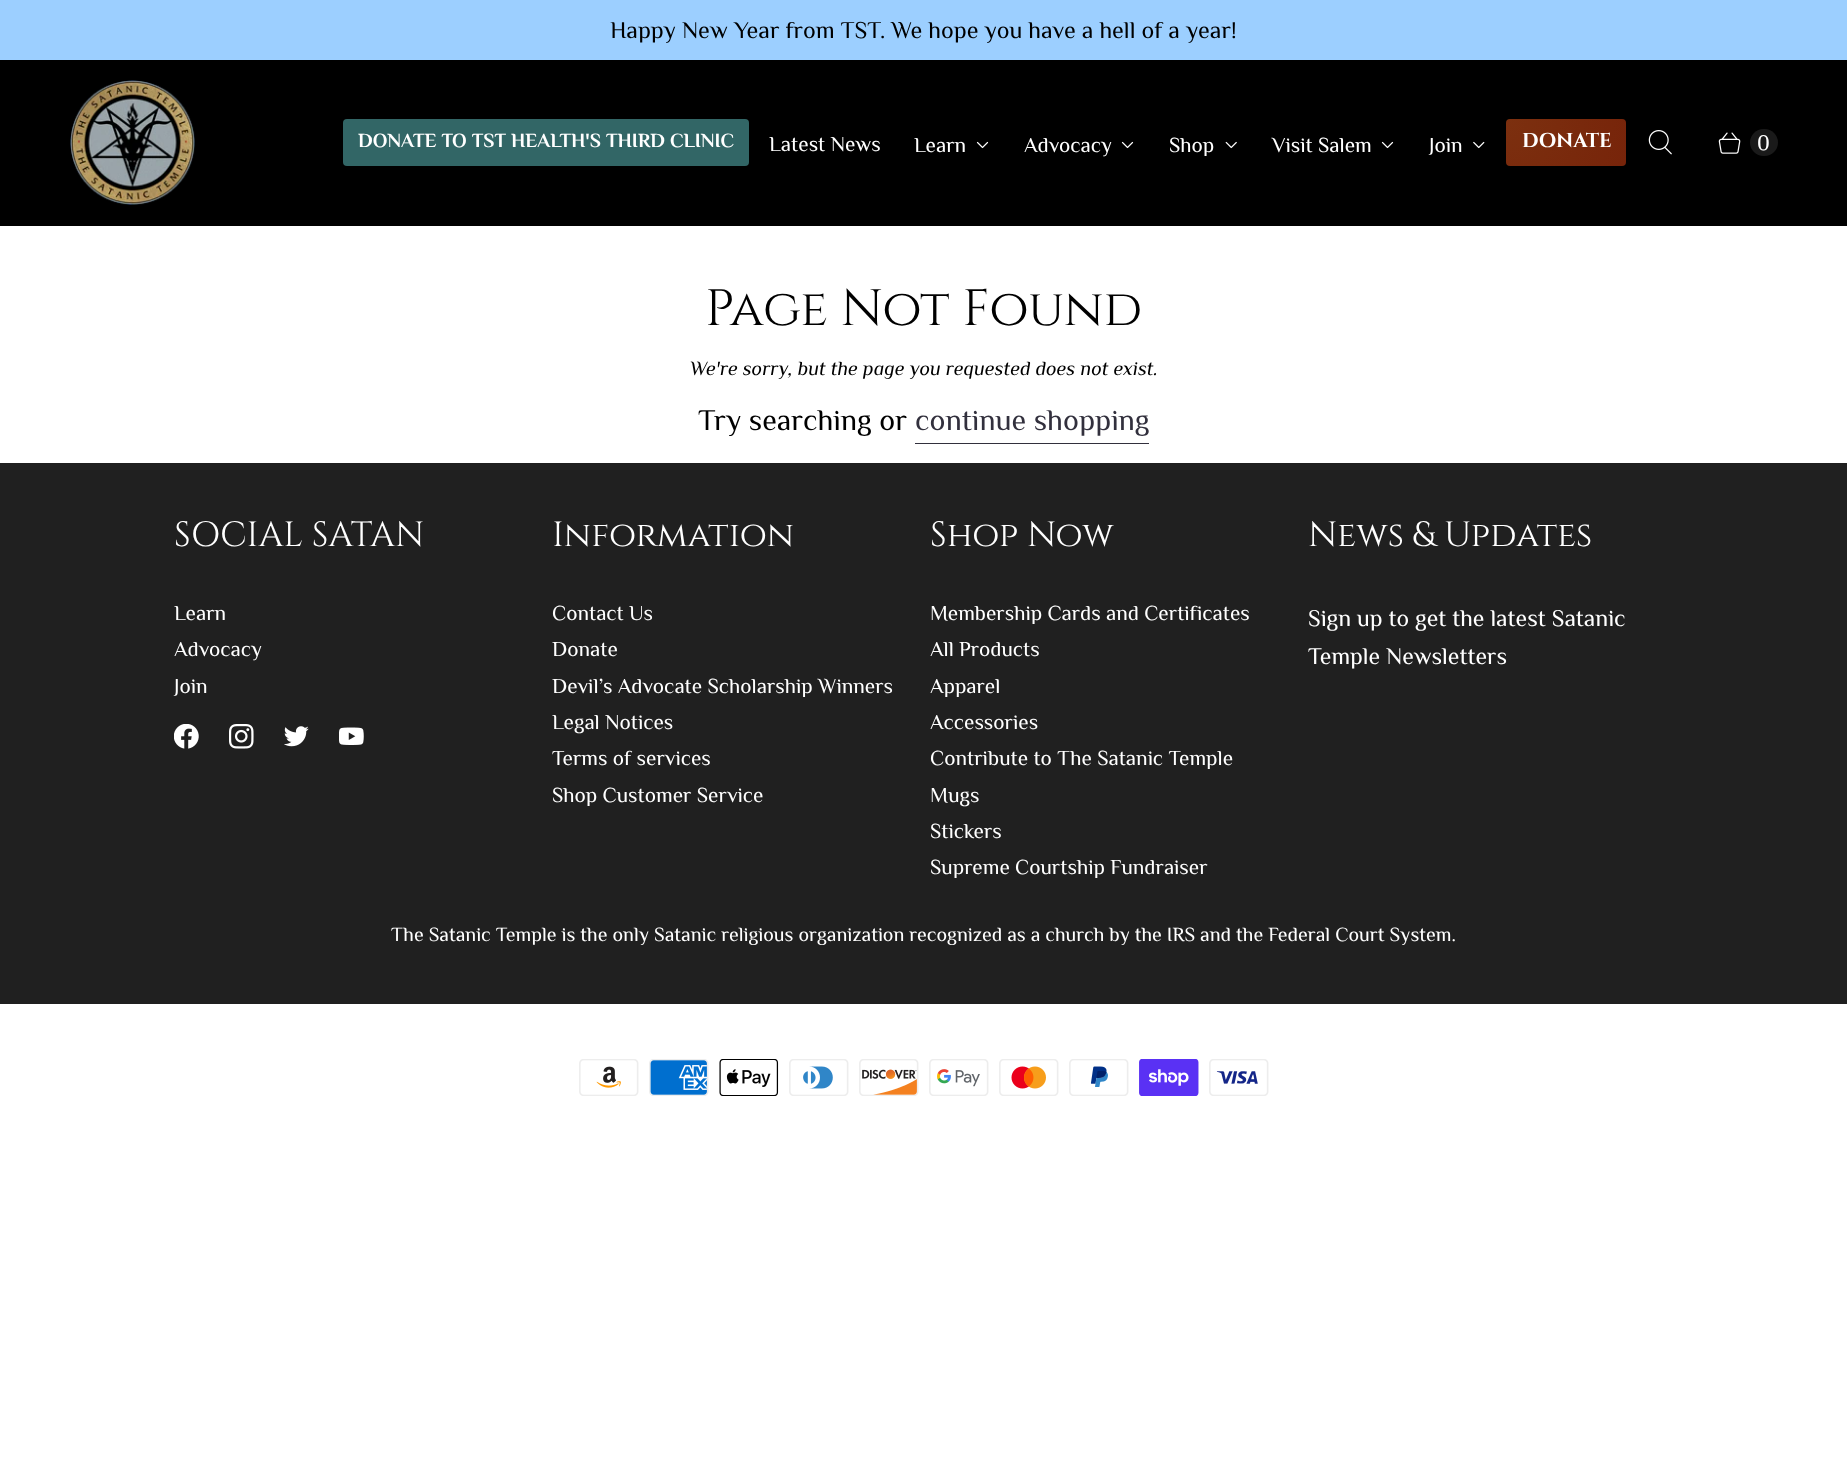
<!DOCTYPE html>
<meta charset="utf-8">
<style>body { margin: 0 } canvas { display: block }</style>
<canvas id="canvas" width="1847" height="1481"></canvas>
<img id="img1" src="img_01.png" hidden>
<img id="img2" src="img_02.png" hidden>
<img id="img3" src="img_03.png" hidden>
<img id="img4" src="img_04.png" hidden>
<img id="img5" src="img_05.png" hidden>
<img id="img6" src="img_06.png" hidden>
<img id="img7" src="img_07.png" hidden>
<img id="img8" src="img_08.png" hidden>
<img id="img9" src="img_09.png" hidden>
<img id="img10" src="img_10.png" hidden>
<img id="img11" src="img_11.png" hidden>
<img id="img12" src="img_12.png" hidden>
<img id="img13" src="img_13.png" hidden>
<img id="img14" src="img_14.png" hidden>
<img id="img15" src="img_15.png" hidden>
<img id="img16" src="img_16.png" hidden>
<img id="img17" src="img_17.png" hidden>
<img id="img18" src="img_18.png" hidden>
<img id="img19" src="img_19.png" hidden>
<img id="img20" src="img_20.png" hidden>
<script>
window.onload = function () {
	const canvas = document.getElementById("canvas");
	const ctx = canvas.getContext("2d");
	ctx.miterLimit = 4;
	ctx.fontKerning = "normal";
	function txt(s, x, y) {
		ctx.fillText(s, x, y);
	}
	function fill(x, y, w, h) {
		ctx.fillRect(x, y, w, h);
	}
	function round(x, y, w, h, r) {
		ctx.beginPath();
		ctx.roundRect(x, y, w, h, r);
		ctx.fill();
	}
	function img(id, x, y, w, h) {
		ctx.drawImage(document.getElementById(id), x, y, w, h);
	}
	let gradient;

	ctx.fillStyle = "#FFFFFF";
	fill(0, 0, 1847, 1481);
	ctx.fillStyle = "#9CCFFF";
	fill(0, 0, 1847, 60);
	ctx.fillStyle = "#000000";
	fill(0, 60, 1847, 166);
	img("img1", 70, 80, 125, 125);
	ctx.fillStyle = "#326666";
	round(343, 119, 406, 47, 4);
	img("img2", 976, 141, 13, 8);
	img("img2", 1121, 141, 13, 8);
	img("img3", 1225, 141, 12, 8);
	img("img2", 1381, 141, 13, 8);
	img("img4", 1473, 141, 12, 8);
	gradient = ctx.createRadialGradient(1506, 119, 0, 1506, 119, 129);
	gradient.addColorStop(0, "#7C300F");
	gradient.addColorStop(1, "#77240A");
	ctx.fillStyle = gradient;
	round(1506, 119, 120, 47, 4);
	img("img5", 1648, 130, 24, 25);
	img("img6", 1718, 132, 23, 22);
	ctx.fillStyle = "#1A1A1A";
	round(1750, 129, 28, 27, 13.5);
	ctx.fillStyle = "#32303D";
	fill(915, 443, 234, 1);
	ctx.fillStyle = "#202020";
	fill(0, 463, 1847, 541);
	img("img7", 174, 724, 25, 25);
	img("img8", 229, 724, 25, 25);
	img("img9", 284, 726, 25, 21);
	img("img10", 339, 727, 25, 18);
	img("img11", 579, 1059, 60, 37);
	img("img12", 649, 1059, 60, 37);
	img("img13", 719, 1059, 60, 37);
	img("img14", 789, 1059, 60, 37);
	img("img15", 859, 1059, 60, 37);
	img("img16", 929, 1059, 60, 37);
	img("img17", 999, 1059, 60, 37);
	img("img18", 1069, 1059, 60, 37);
	img("img19", 1139, 1059, 60, 37);
	img("img20", 1209, 1059, 60, 37);
	ctx.font = "24.05px Philosopher";
	ctx.fillStyle = "#000000";
	txt("Happy New Year from TST. We hope you have a hell of a year!", 610, 38);
	ctx.font = "bold 20px Philosopher";
	ctx.fillStyle = "#FFFFFF";
	txt("DONATE TO TST HEALTH'S THIRD CLINIC", 358, 147);
	ctx.font = "21.25px Philosopher";
	txt("Latest News", 769, 151);
	txt("Learn", 914, 152);
	txt("Advocacy", 1024, 152);
	txt("Shop", 1169, 152);
	txt("Visit Salem", 1272, 152);
	txt("Join", 1429, 152);
	ctx.font = "bold 20px Cinzel";
	txt("DONATE", 1522, 147);
	ctx.font = "22px Philosopher";
	txt("0", 1757, 150);
	ctx.font = "51px Cinzel";
	ctx.fillStyle = "#000000";
	txt("Page Not Found", 705, 325);
	ctx.font = "italic 20px Philosopher";
	txt("We're sorry, but the page you requested does not exist.", 690, 375);
	ctx.font = "30px Philosopher";
	txt("Try searching or", 698, 430);
	ctx.fillStyle = "#32303D";
	txt("continue shopping", 915, 430);
	ctx.font = "35px Cinzel";
	ctx.fillStyle = "#FFFFFF";
	txt("SOCIAL SATAN", 174, 546);
	ctx.font = "21.25px Philosopher";
	txt("Learn", 174, 620);
	txt("Advocacy", 174, 656);
	txt("Join", 174, 693);
	ctx.font = "35px Cinzel";
	txt("Information", 552, 546);
	ctx.font = "21.25px Philosopher";
	txt("Contact Us", 552, 620);
	txt("Donate", 552, 656);
	txt("Devil’s Advocate Scholarship Winners", 552, 693);
	txt("Legal Notices", 552, 729);
	txt("Terms of services", 552, 765);
	txt("Shop Customer Service", 552, 802);
	ctx.font = "35px Cinzel";
	txt("Shop Now", 930, 546);
	ctx.font = "21.25px Philosopher";
	txt("Membership Cards and Certificates", 930, 620);
	txt("All Products", 930, 656);
	txt("Apparel", 930, 693);
	txt("Accessories", 930, 729);
	txt("Contribute to The Satanic Temple", 930, 765);
	txt("Mugs", 930, 802);
	txt("Stickers", 930, 838);
	txt("Supreme Courtship Fundraiser", 930, 874);
	ctx.font = "35px Cinzel";
	txt("News & Updates", 1308, 546);
	ctx.font = "23.75px Philosopher";
	txt("Sign up to get the latest Satanic", 1308, 626);
	txt("Temple Newsletters", 1308, 664);
	ctx.font = "20px Philosopher";
	txt("The Satanic Temple is the only Satanic religious organization recognized as a church by the IRS and the Federal Court System.", 391, 941);
};
</script>
